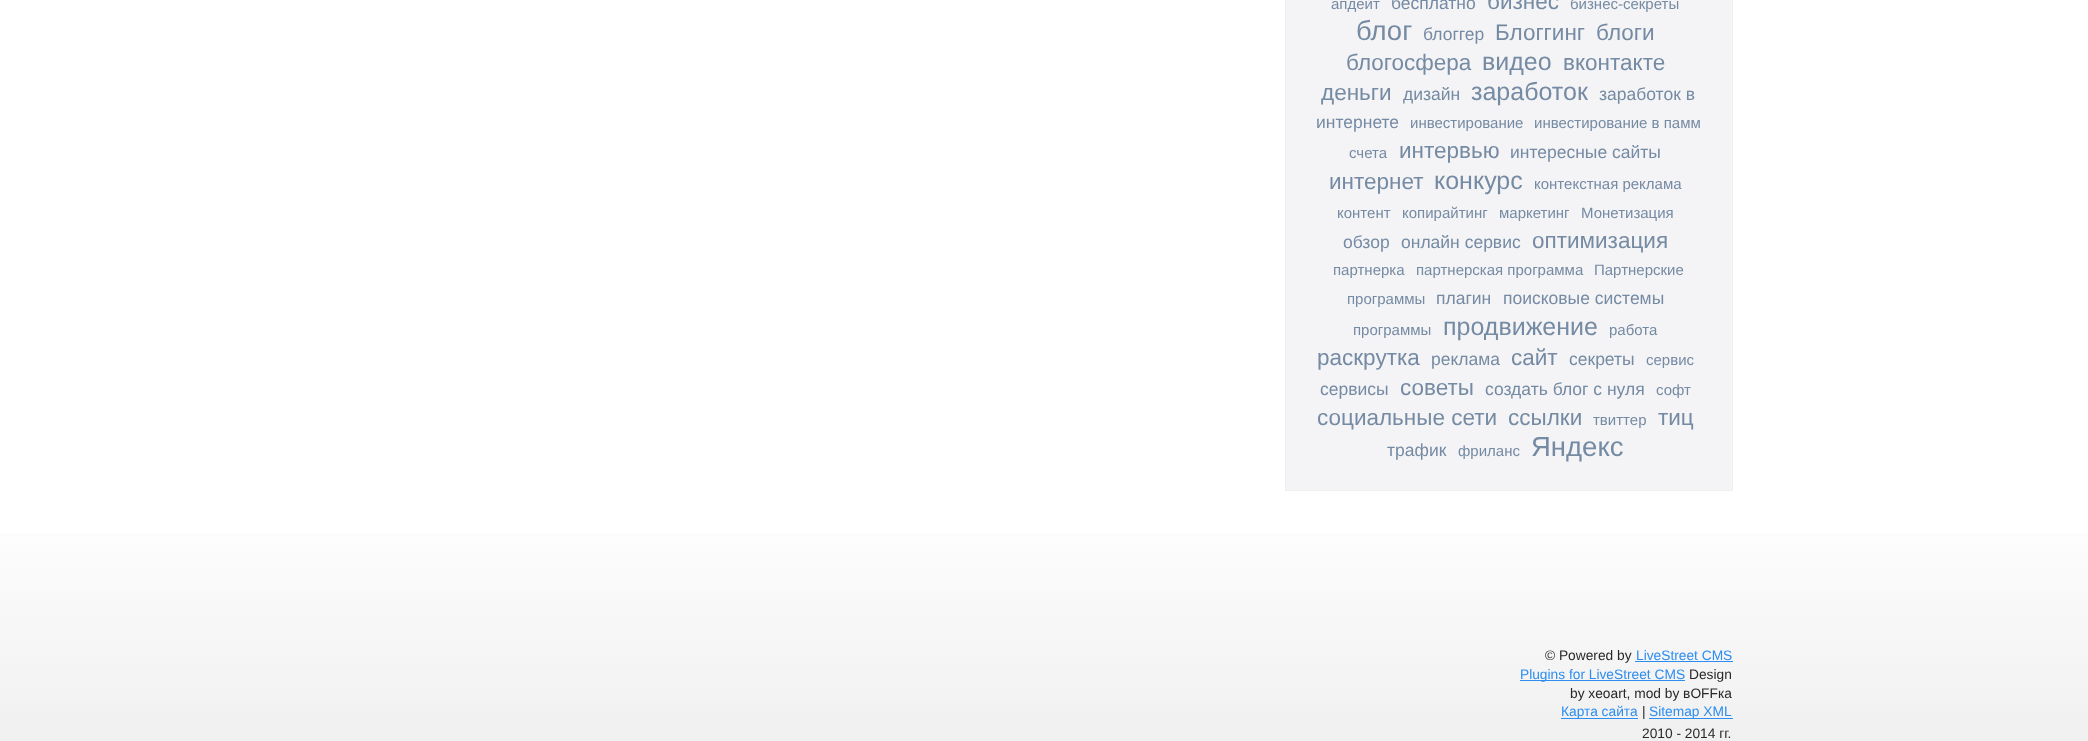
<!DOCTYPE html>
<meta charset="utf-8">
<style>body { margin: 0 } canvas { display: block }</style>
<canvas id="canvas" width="2088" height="741"></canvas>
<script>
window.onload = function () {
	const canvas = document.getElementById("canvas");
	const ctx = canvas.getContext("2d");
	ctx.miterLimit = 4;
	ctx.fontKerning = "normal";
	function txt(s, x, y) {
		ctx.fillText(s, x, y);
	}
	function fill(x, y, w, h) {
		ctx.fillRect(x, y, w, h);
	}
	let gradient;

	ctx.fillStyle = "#FFFFFF";
	fill(0, 0, 2088, 741);
	ctx.fillStyle = "#F4F4F6";
	ctx.beginPath();
	ctx.rect(1285.5, -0.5, 447, 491);
	ctx.fill();
	ctx.strokeStyle = "#F0F0F0";
	ctx.stroke();
	gradient = ctx.createLinearGradient(1044, 491, 1044, 741);
	gradient.addColorStop(0, "#FFFFFF");
	gradient.addColorStop(1, "#F0F0F0");
	ctx.fillStyle = gradient;
	fill(0, 533, 2088, 208);
	ctx.fillStyle = "#2D8DF0";
	fill(1635, 661, 98, 1);
	fill(1520, 680, 165, 1);
	fill(1561, 718, 77, 1);
	fill(1649, 718, 84, 1);
	ctx.font = "15px Liberation Sans";
	ctx.fillStyle = "#758AA3";
	txt("апдейт", 1331, 9);
	ctx.font = "17.5px Liberation Sans";
	txt("бесплатно", 1391, 9);
	ctx.font = "22.5px Liberation Sans";
	txt("бизнес", 1487, 9);
	ctx.font = "15px Liberation Sans";
	txt("бизнес-секреты", 1570, 9);
	ctx.font = "27.5px Liberation Sans";
	txt("блог", 1356, 40);
	ctx.font = "17.5px Liberation Sans";
	txt("блоггер", 1423, 40);
	ctx.font = "22.5px Liberation Sans";
	txt("Блоггинг", 1495, 40);
	txt("блоги", 1596, 40);
	txt("блогосфера", 1346, 70);
	ctx.font = "25px Liberation Sans";
	txt("видео", 1482, 70);
	ctx.font = "22.5px Liberation Sans";
	txt("вконтакте", 1563, 70);
	txt("деньги", 1321, 100);
	ctx.font = "17.5px Liberation Sans";
	txt("дизайн", 1403, 100);
	ctx.font = "25px Liberation Sans";
	txt("заработок", 1471, 100);
	ctx.font = "17.5px Liberation Sans";
	txt("заработок в", 1599, 100);
	txt("интернете", 1316, 128);
	ctx.font = "15px Liberation Sans";
	txt("инвестирование", 1410, 128);
	txt("инвестирование в памм", 1534, 128);
	txt("счета", 1349, 158);
	ctx.font = "22.5px Liberation Sans";
	txt("интервью", 1399, 158);
	ctx.font = "17.5px Liberation Sans";
	txt("интересные сайты", 1510, 158);
	ctx.font = "22.5px Liberation Sans";
	txt("интернет", 1329, 189);
	ctx.font = "25px Liberation Sans";
	txt("конкурс", 1434, 189);
	ctx.font = "15px Liberation Sans";
	txt("контекстная реклама", 1534, 189);
	txt("контент", 1337, 218);
	txt("копирайтинг", 1402, 218);
	txt("маркетинг", 1499, 218);
	txt("Монетизация", 1581, 218);
	ctx.font = "17.5px Liberation Sans";
	txt("обзор", 1343, 248);
	txt("онлайн сервис", 1401, 248);
	ctx.font = "22.5px Liberation Sans";
	txt("оптимизация", 1532, 248);
	ctx.font = "15px Liberation Sans";
	txt("партнерка", 1333, 275);
	txt("партнерская программа", 1416, 275);
	txt("Партнерские", 1594, 275);
	txt("программы", 1347, 304);
	ctx.font = "17.5px Liberation Sans";
	txt("плагин", 1436, 304);
	txt("поисковые системы", 1503, 304);
	ctx.font = "15px Liberation Sans";
	txt("программы", 1353, 335);
	ctx.font = "25px Liberation Sans";
	txt("продвижение", 1443, 335);
	ctx.font = "15px Liberation Sans";
	txt("работа", 1609, 335);
	ctx.font = "22.5px Liberation Sans";
	txt("раскрутка", 1317, 365);
	ctx.font = "17.5px Liberation Sans";
	txt("реклама", 1431, 365);
	ctx.font = "22.5px Liberation Sans";
	txt("сайт", 1511, 365);
	ctx.font = "17.5px Liberation Sans";
	txt("секреты", 1569, 365);
	ctx.font = "15px Liberation Sans";
	txt("сервис", 1646, 365);
	ctx.font = "17.5px Liberation Sans";
	txt("сервисы", 1320, 395);
	ctx.font = "22.5px Liberation Sans";
	txt("советы", 1400, 395);
	ctx.font = "17.5px Liberation Sans";
	txt("создать блог с нуля", 1485, 395);
	ctx.font = "15px Liberation Sans";
	txt("софт", 1656, 395);
	ctx.font = "22.5px Liberation Sans";
	txt("социальные сети", 1317, 425);
	txt("ссылки", 1508, 425);
	ctx.font = "15px Liberation Sans";
	txt("твиттер", 1593, 425);
	ctx.font = "22.5px Liberation Sans";
	txt("тиц", 1658, 425);
	ctx.font = "17.5px Liberation Sans";
	txt("трафик", 1387, 456);
	ctx.font = "15px Liberation Sans";
	txt("фриланс", 1458, 456);
	ctx.font = "27.5px Liberation Sans";
	txt("Яндекс", 1531, 456);
	ctx.font = "13.75px Liberation Sans";
	ctx.fillStyle = "#282828";
	txt("© Powered by", 1545, 660);
	ctx.fillStyle = "#2D8DF0";
	txt("LiveStreet CMS", 1636, 660);
	txt("Plugins for LiveStreet CMS", 1520, 679);
	ctx.fillStyle = "#282828";
	txt("Design", 1689, 679);
	txt("by xeoart, mod by вOFFка", 1570, 698);
	ctx.fillStyle = "#2D8DF0";
	txt("Карта сайта", 1561, 716);
	ctx.fillStyle = "#282828";
	txt("|", 1642, 716);
	ctx.fillStyle = "#2D8DF0";
	txt("Sitemap XML", 1649, 716);
	ctx.fillStyle = "#282828";
	txt("2010 - 2014 гг.", 1642, 738);
};
</script>
